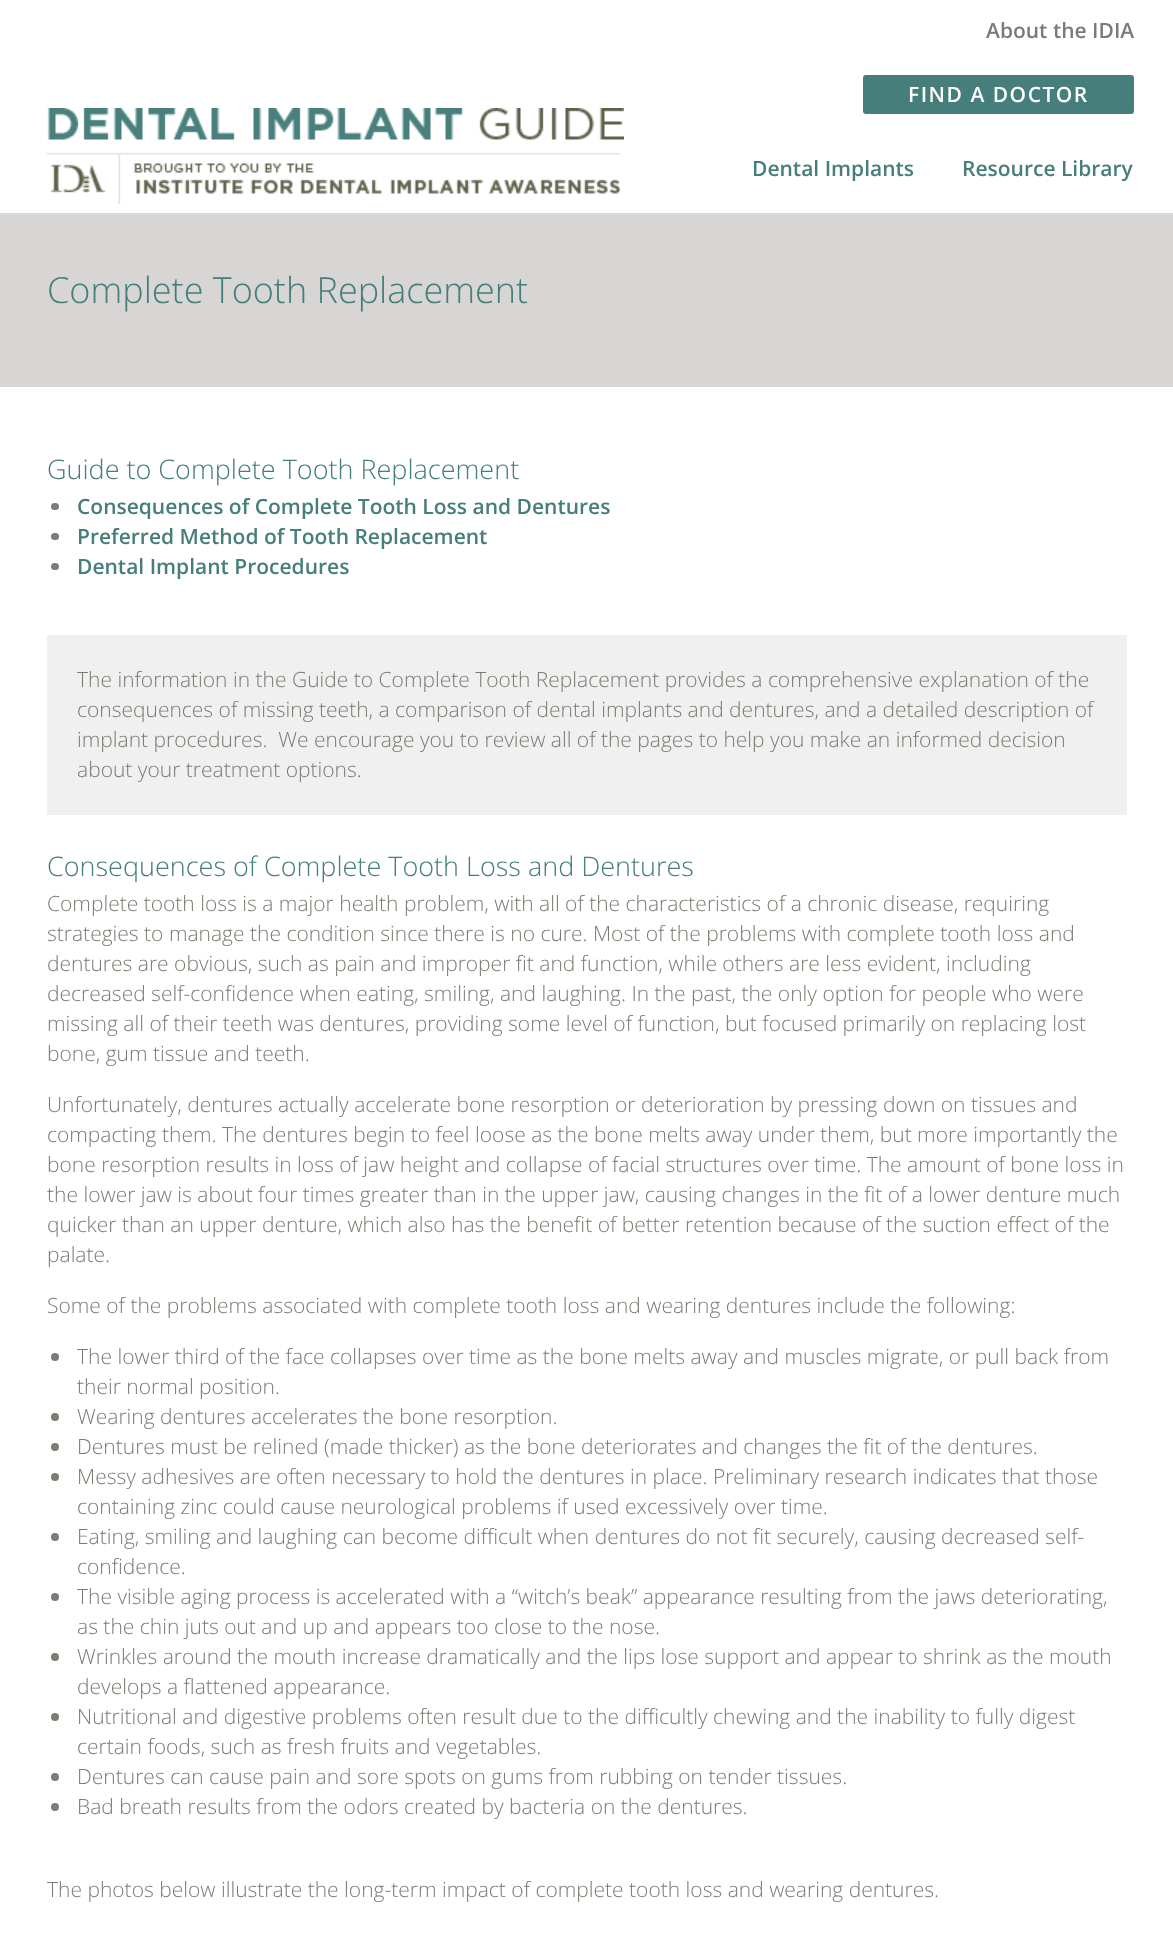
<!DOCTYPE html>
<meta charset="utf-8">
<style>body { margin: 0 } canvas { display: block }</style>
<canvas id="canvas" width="1173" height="1933"></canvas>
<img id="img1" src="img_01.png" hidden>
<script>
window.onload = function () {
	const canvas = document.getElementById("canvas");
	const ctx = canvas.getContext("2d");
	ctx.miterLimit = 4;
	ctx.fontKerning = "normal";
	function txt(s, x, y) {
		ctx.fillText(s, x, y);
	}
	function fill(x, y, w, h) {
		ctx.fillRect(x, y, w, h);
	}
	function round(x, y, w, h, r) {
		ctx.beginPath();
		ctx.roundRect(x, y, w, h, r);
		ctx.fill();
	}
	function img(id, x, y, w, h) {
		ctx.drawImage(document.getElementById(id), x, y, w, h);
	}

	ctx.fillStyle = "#FFFFFF";
	fill(0, 0, 1173, 1933);
	ctx.fillStyle = "#467E7B";
	round(863, 75, 271, 39, 3);
	img("img1", 46, 108, 578, 96);
	ctx.fillStyle = "#D7D6D4";
	fill(0, 215, 1173, 172);
	ctx.fillStyle = "#D9D9D9";
	fill(0, 213, 1173, 2);
	ctx.fillStyle = "#7A7D71";
	round(51, 503, 8, 7, 3.5);
	round(51, 533, 8, 7, 3.5);
	round(51, 563, 8, 7, 3.5);
	ctx.fillStyle = "#F0F0F0";
	fill(47, 635, 1080, 180);
	ctx.fillStyle = "#7A7D71";
	ctx.beginPath();
	ctx.arc(55, 1357, 4, 0, Math.PI * 2);
	ctx.fill();
	ctx.beginPath();
	ctx.arc(55, 1417, 4, 0, Math.PI * 2);
	ctx.fill();
	ctx.beginPath();
	ctx.arc(55, 1447, 4, 0, Math.PI * 2);
	ctx.fill();
	ctx.beginPath();
	ctx.arc(55, 1477, 4, 0, Math.PI * 2);
	ctx.fill();
	ctx.beginPath();
	ctx.arc(55, 1537, 4, 0, Math.PI * 2);
	ctx.fill();
	ctx.beginPath();
	ctx.arc(55, 1597, 4, 0, Math.PI * 2);
	ctx.fill();
	ctx.beginPath();
	ctx.arc(55, 1657, 4, 0, Math.PI * 2);
	ctx.fill();
	ctx.beginPath();
	ctx.arc(55, 1717, 4, 0, Math.PI * 2);
	ctx.fill();
	ctx.beginPath();
	ctx.arc(55, 1777, 4, 0, Math.PI * 2);
	ctx.fill();
	ctx.beginPath();
	ctx.arc(55, 1807, 4, 0, Math.PI * 2);
	ctx.fill();
	ctx.font = "600 21px Open Sans";
	ctx.fillStyle = "#7B7B73";
	txt("About the IDIA", 986, 38);
	ctx.letterSpacing = "1.5px";
	ctx.fillStyle = "#FFFFFF";
	txt("FIND A DOCTOR", 908, 102);
	ctx.letterSpacing = "0px";
	ctx.fillStyle = "#467E7B";
	txt("Dental Implants", 752, 176);
	txt("Resource Library", 962, 176);
	ctx.font = "300 36px Open Sans";
	txt("Complete Tooth Replacement", 47, 303);
	ctx.font = "300 27px Open Sans";
	txt("Guide to Complete Tooth Replacement", 47, 479);
	ctx.font = "600 21px Open Sans";
	txt("Consequences of Complete Tooth Loss and Dentures", 77, 514);
	txt("Preferred Method of Tooth Replacement", 77, 544);
	txt("Dental Implant Procedures", 77, 574);
	ctx.font = "300 21px Open Sans";
	ctx.fillStyle = "#7B7B73";
	txt("The information in the Guide to Complete Tooth Replacement provides a comprehensive explanation of the", 77, 687);
	txt("consequences of missing teeth, a comparison of dental implants and dentures, and a detailed description of", 77, 717);
	txt("implant procedures.  We encourage you to review all of the pages to help you make an informed decision", 77, 747);
	txt("about your treatment options.", 77, 777);
	ctx.font = "300 27px Open Sans";
	ctx.fillStyle = "#467E7B";
	txt("Consequences of Complete Tooth Loss and Dentures", 47, 876);
	ctx.font = "300 21px Open Sans";
	ctx.fillStyle = "#7B7B73";
	txt("Complete tooth loss is a major health problem, with all of the characteristics of a chronic disease, requiring", 47, 911);
	txt("strategies to manage the condition since there is no cure. Most of the problems with complete tooth loss and", 47, 941);
	txt("dentures are obvious, such as pain and improper fit and function, while others are less evident, including", 47, 971);
	txt("decreased self-confidence when eating, smiling, and laughing. In the past, the only option for people who were", 47, 1001);
	txt("missing all of their teeth was dentures, providing some level of function, but focused primarily on replacing lost", 47, 1031);
	txt("bone, gum tissue and teeth.", 47, 1061);
	txt("Unfortunately, dentures actually accelerate bone resorption or deterioration by pressing down on tissues and", 47, 1112);
	txt("compacting them. The dentures begin to feel loose as the bone melts away under them, but more importantly the", 47, 1142);
	txt("bone resorption results in loss of jaw height and collapse of facial structures over time. The amount of bone loss in", 47, 1172);
	txt("the lower jaw is about four times greater than in the upper jaw, causing changes in the fit of a lower denture much", 47, 1202);
	txt("quicker than an upper denture, which also has the benefit of better retention because of the suction effect of the", 47, 1232);
	txt("palate.", 47, 1262);
	txt("Some of the problems associated with complete tooth loss and wearing dentures include the following:", 47, 1313);
	txt("The lower third of the face collapses over time as the bone melts away and muscles migrate, or pull back from", 77, 1364);
	txt("their normal position.", 77, 1394);
	txt("Wearing dentures accelerates the bone resorption.", 77, 1424);
	txt("Dentures must be relined (made thicker) as the bone deteriorates and changes the fit of the dentures.", 77, 1454);
	txt("Messy adhesives are often necessary to hold the dentures in place. Preliminary research indicates that those", 77, 1484);
	txt("containing zinc could cause neurological problems if used excessively over time.", 77, 1514);
	txt("Eating, smiling and laughing can become difficult when dentures do not fit securely, causing decreased self-", 77, 1544);
	txt("confidence.", 77, 1574);
	txt("The visible aging process is accelerated with a “witch’s beak” appearance resulting from the jaws deteriorating,", 77, 1604);
	txt("as the chin juts out and up and appears too close to the nose.", 77, 1634);
	txt("Wrinkles around the mouth increase dramatically and the lips lose support and appear to shrink as the mouth", 77, 1664);
	txt("develops a flattened appearance.", 77, 1694);
	txt("Nutritional and digestive problems often result due to the difficultly chewing and the inability to fully digest", 77, 1724);
	txt("certain foods, such as fresh fruits and vegetables.", 77, 1754);
	txt("Dentures can cause pain and sore spots on gums from rubbing on tender tissues.", 77, 1784);
	txt("Bad breath results from the odors created by bacteria on the dentures.", 77, 1814);
	txt("The photos below illustrate the long-term impact of complete tooth loss and wearing dentures.", 47, 1897);
};
</script>
